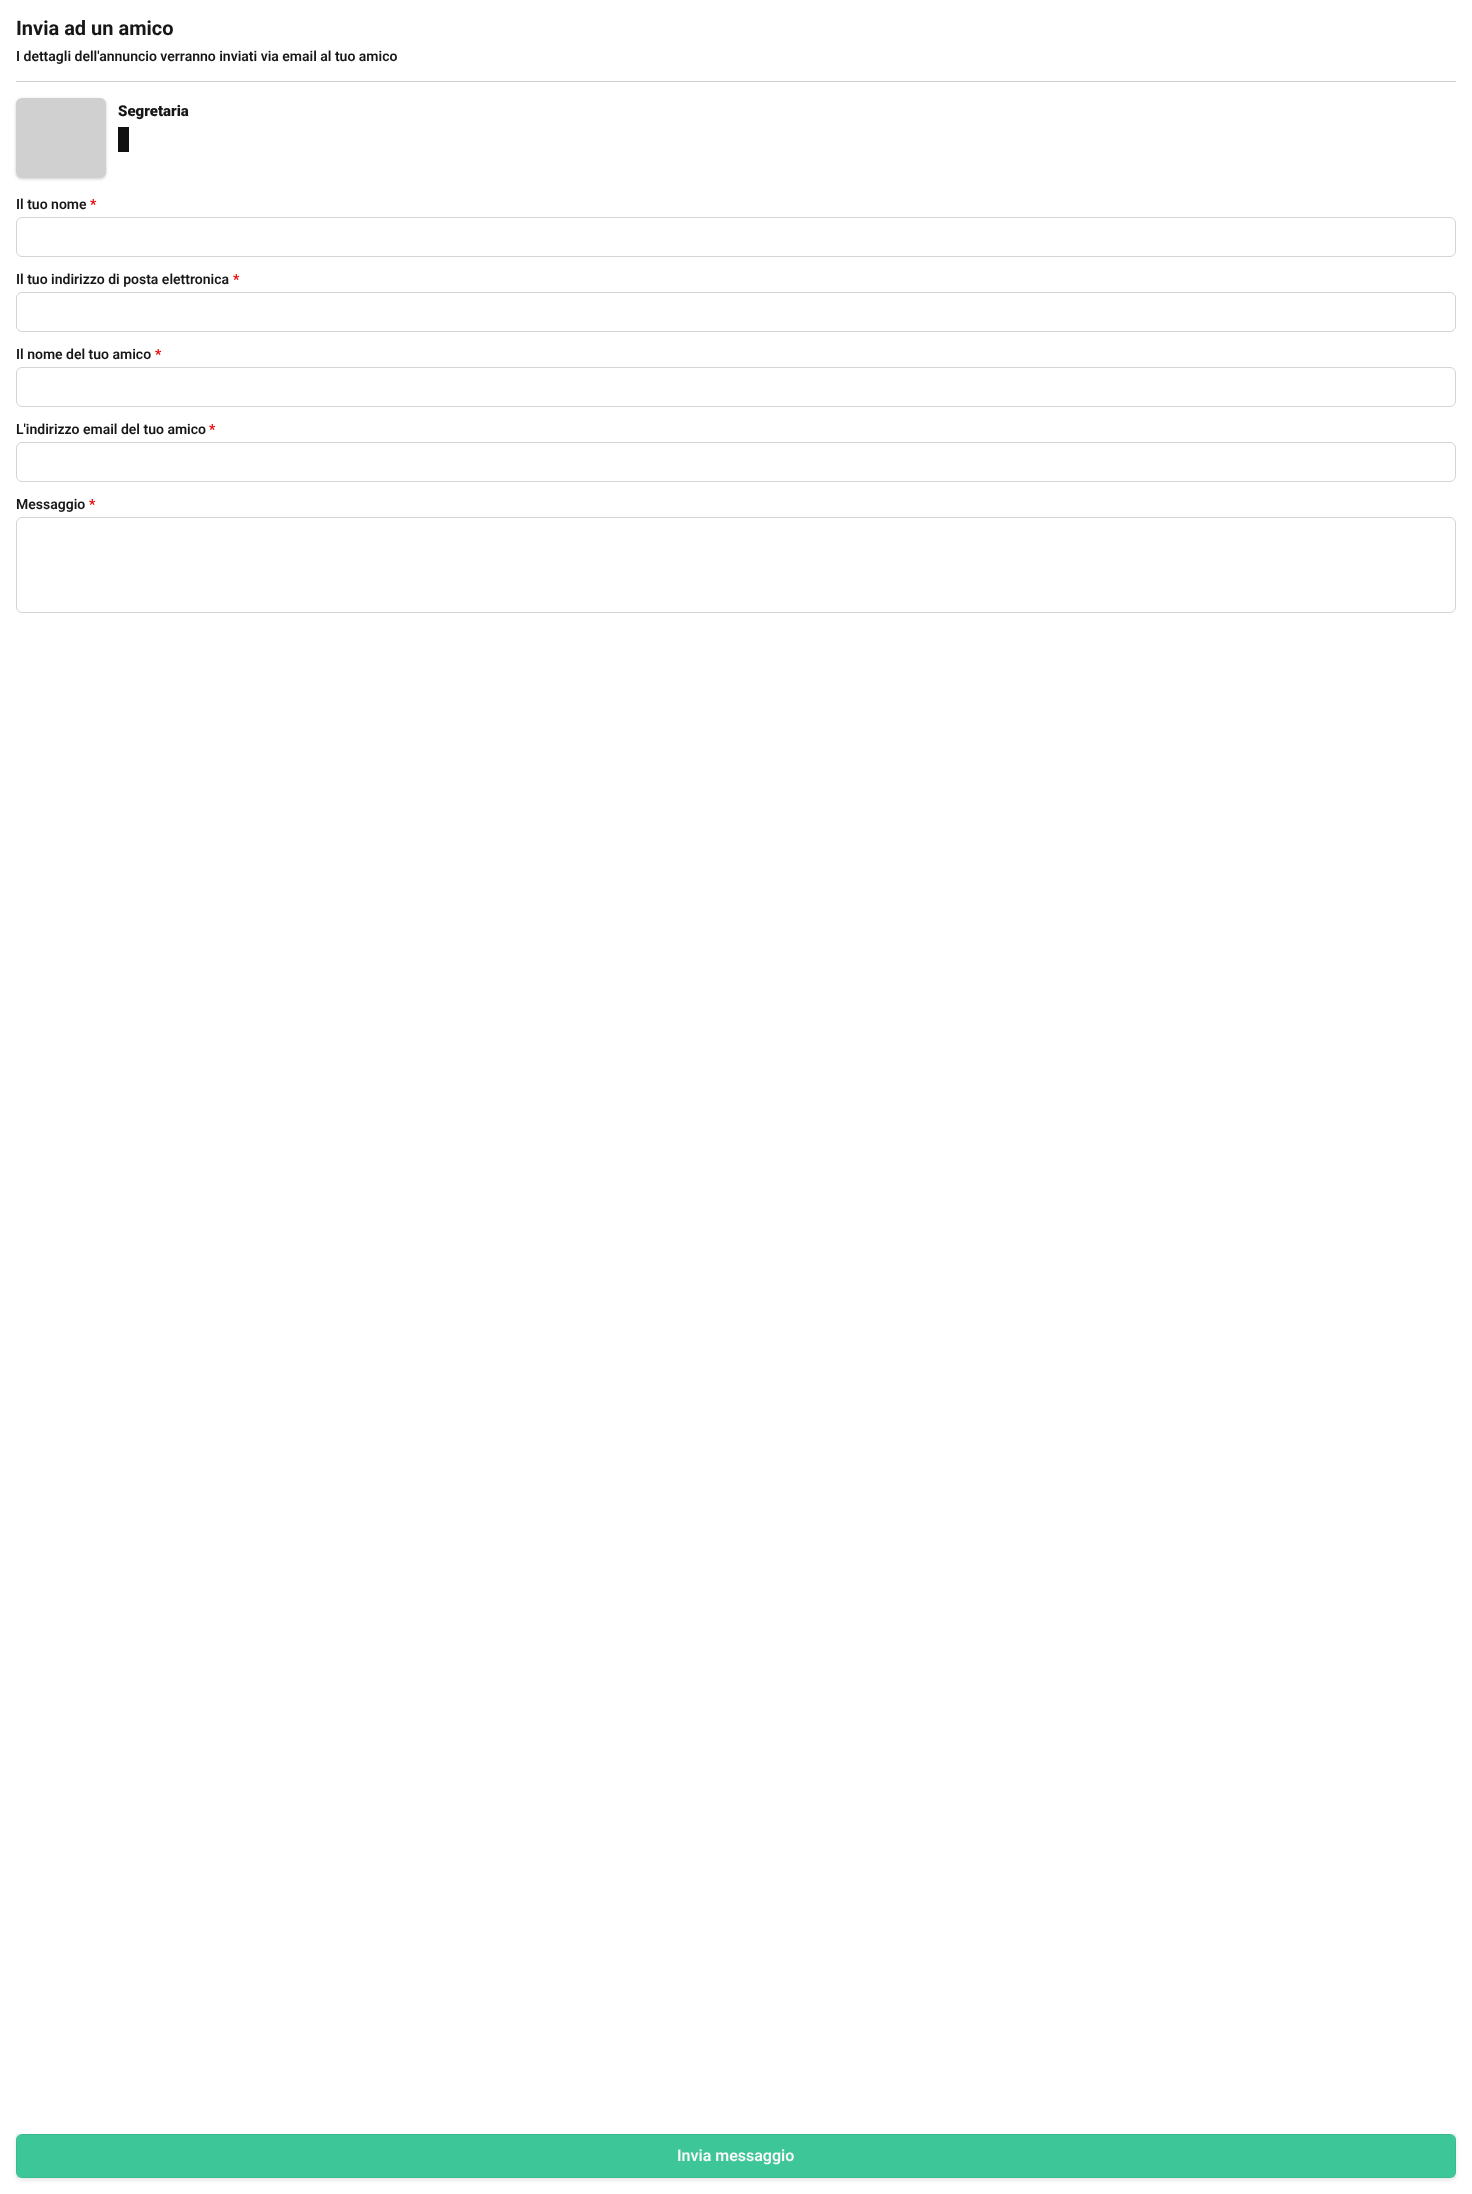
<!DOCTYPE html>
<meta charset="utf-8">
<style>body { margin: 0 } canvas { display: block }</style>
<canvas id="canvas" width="1472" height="2194"></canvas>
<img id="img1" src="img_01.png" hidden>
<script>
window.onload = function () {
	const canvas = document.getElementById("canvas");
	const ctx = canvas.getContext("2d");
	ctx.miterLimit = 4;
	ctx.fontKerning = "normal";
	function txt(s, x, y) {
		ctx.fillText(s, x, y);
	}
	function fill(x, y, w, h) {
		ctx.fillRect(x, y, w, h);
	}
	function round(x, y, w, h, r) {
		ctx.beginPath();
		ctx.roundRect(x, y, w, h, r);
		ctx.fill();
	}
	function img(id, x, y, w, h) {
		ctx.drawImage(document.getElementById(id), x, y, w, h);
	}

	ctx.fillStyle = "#FFFFFF";
	fill(0, 0, 1472, 2194);
	ctx.fillStyle = "#CCCCCC";
	fill(16, 81, 1440, 1);
	ctx.fillStyle = "rgba(0, 0, 0, 0.2)";
	ctx.filter = "blur(1.5px)";
	ctx.beginPath();
	ctx.roundRect(16, 99, 90, 80, 6);
	ctx.fill();
	ctx.filter = "none";
	img("img1", 16, 98, 90, 80);
	ctx.fillStyle = "#111111";
	fill(118, 127, 11, 25);
	ctx.beginPath();
	ctx.roundRect(16.5, 217.5, 1439, 39, 5.5);
	ctx.strokeStyle = "#D4D4D4";
	ctx.stroke();
	ctx.beginPath();
	ctx.roundRect(16.5, 292.5, 1439, 39, 5.5);
	ctx.stroke();
	ctx.beginPath();
	ctx.roundRect(16.5, 367.5, 1439, 39, 5.5);
	ctx.stroke();
	ctx.beginPath();
	ctx.roundRect(16.5, 442.5, 1439, 39, 5.5);
	ctx.stroke();
	ctx.beginPath();
	ctx.roundRect(16.5, 517.5, 1439, 95, 5.5);
	ctx.stroke();
	ctx.fillStyle = "rgba(0, 0, 0, 0.1)";
	ctx.filter = "blur(2.5px)";
	ctx.beginPath();
	ctx.roundRect(16, 2136, 1440, 44, 6);
	ctx.fill();
	ctx.filter = "none";
	ctx.fillStyle = "#3DC697";
	round(16, 2134, 1440, 44, 6);
	ctx.strokeStyle = "rgba(0, 0, 0, 0.05)";
	ctx.strokeRect(16.5, 2134.5, 1439, 43);
	ctx.font = "bold 20px Roboto";
	ctx.fillStyle = "#171717";
	txt("Invia ad un amico", 16, 35);
	ctx.font = "600 14px Roboto";
	txt("I dettagli dell'annuncio verranno inviati via email al tuo amico", 16, 61);
	ctx.font = "900 15px Roboto";
	txt("Segretaria", 118, 116);
	ctx.font = "600 14px Roboto";
	txt("Il tuo nome", 16, 209);
	ctx.font = "bold 14px Roboto";
	ctx.fillStyle = "#E90303";
	txt("*", 90, 209);
	ctx.font = "600 14px Roboto";
	ctx.fillStyle = "#171717";
	txt("Il tuo indirizzo di posta elettronica", 16, 284);
	ctx.font = "bold 14px Roboto";
	ctx.fillStyle = "#E90303";
	txt("*", 233, 284);
	ctx.font = "600 14px Roboto";
	ctx.fillStyle = "#171717";
	txt("Il nome del tuo amico", 16, 359);
	ctx.font = "bold 14px Roboto";
	ctx.fillStyle = "#E90303";
	txt("*", 155, 359);
	ctx.font = "600 14px Roboto";
	ctx.fillStyle = "#171717";
	txt("L'indirizzo email del tuo amico", 16, 434);
	ctx.font = "bold 14px Roboto";
	ctx.fillStyle = "#E90303";
	txt("*", 209, 434);
	ctx.font = "600 14px Roboto";
	ctx.fillStyle = "#171717";
	txt("Messaggio", 16, 509);
	ctx.font = "bold 14px Roboto";
	ctx.fillStyle = "#E90303";
	txt("*", 89, 509);
	ctx.font = "600 16px Roboto";
	ctx.fillStyle = "#F9F9F9";
	txt("Invia messaggio", 677, 2161);
};
</script>
